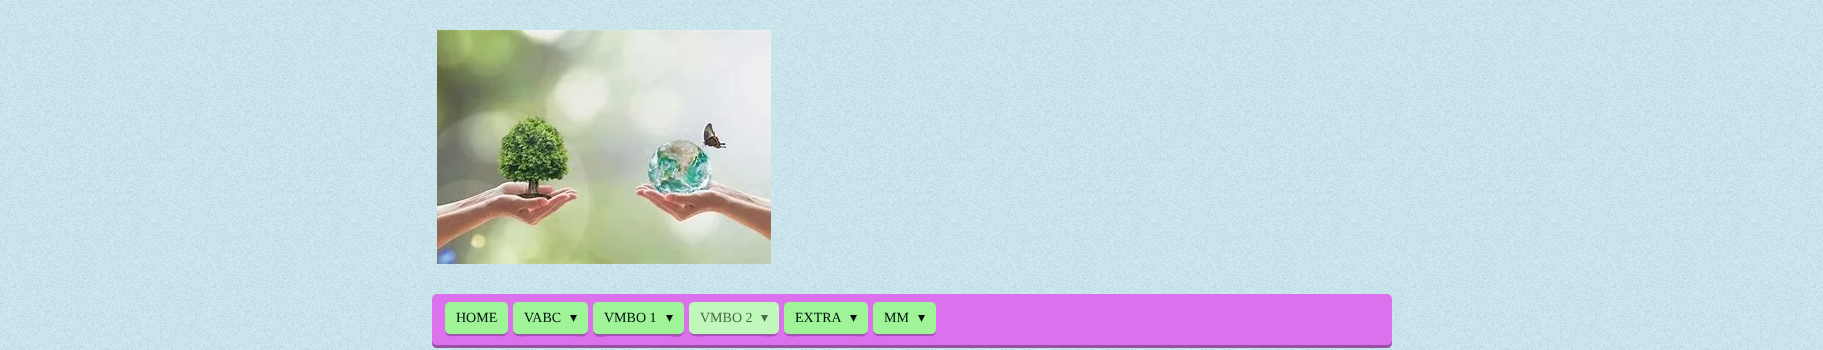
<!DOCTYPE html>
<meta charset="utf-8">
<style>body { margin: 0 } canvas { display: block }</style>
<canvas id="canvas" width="1823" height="350"></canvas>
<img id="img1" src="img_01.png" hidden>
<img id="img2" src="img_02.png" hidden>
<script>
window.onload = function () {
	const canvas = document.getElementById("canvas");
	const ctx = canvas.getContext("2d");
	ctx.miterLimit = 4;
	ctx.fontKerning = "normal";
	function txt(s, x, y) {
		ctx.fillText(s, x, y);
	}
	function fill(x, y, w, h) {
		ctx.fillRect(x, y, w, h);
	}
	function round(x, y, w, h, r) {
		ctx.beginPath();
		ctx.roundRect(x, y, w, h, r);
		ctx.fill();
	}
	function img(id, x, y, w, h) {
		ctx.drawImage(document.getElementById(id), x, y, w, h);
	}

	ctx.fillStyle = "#CEE8F0";
	fill(0, 0, 1823, 350);
	img("img1", 0, 0, 1823, 350);
	img("img2", 437, 30, 334, 234);
	ctx.fillStyle = "#DB71EC";
	round(432, 294, 960, 54, 5);
	ctx.fillStyle = "rgba(0, 0, 0, 0.3)";
	ctx.beginPath();
	ctx.moveTo(432, 340);
	ctx.lineTo(432, 343);
	ctx.bezierCurveTo(432, 346, 434, 348, 437, 348);
	ctx.lineTo(1387, 348);
	ctx.bezierCurveTo(1390, 348, 1392, 346, 1392, 343);
	ctx.lineTo(1392, 340);
	ctx.bezierCurveTo(1392, 343, 1390, 345, 1387, 345);
	ctx.lineTo(437, 345);
	ctx.bezierCurveTo(434, 345, 432, 343, 432, 340);
	ctx.closePath();
	ctx.fill();
	ctx.fillStyle = "#A455B1";
	ctx.beginPath();
	ctx.moveTo(445, 329);
	ctx.bezierCurveTo(445, 338, 451, 336, 459, 336);
	ctx.lineTo(494, 336);
	ctx.bezierCurveTo(502, 336, 508, 338, 508, 329);
	ctx.bezierCurveTo(508, 332, 506, 334, 503, 334);
	ctx.lineTo(450, 334);
	ctx.bezierCurveTo(447, 334, 445, 332, 445, 329);
	ctx.closePath();
	ctx.fill();
	ctx.fillStyle = "#9EF496";
	round(445, 302, 63, 32, 5);
	ctx.fillStyle = "#A455B1";
	ctx.beginPath();
	ctx.moveTo(513, 329);
	ctx.bezierCurveTo(513, 339, 521, 336, 529, 336);
	ctx.lineTo(572, 336);
	ctx.bezierCurveTo(580, 336, 588, 339, 588, 329);
	ctx.bezierCurveTo(588, 332, 586, 334, 583, 334);
	ctx.lineTo(518, 334);
	ctx.bezierCurveTo(515, 334, 513, 332, 513, 329);
	ctx.closePath();
	ctx.fill();
	ctx.fillStyle = "#9EF496";
	round(513, 302, 75, 32, 5);
	ctx.fillStyle = "#A455B1";
	ctx.beginPath();
	ctx.moveTo(593, 329);
	ctx.bezierCurveTo(593, 340, 603, 336, 612, 336);
	ctx.lineTo(666, 336);
	ctx.bezierCurveTo(674, 336, 684, 340, 684, 329);
	ctx.bezierCurveTo(684, 332, 682, 334, 679, 334);
	ctx.lineTo(598, 334);
	ctx.bezierCurveTo(595, 334, 593, 332, 593, 329);
	ctx.closePath();
	ctx.fill();
	ctx.fillStyle = "#9EF496";
	round(593, 302, 91, 32, 5);
	ctx.fillStyle = "#A455B1";
	ctx.beginPath();
	ctx.moveTo(689, 329);
	ctx.bezierCurveTo(689, 339, 699, 336, 707, 336);
	ctx.lineTo(761, 336);
	ctx.bezierCurveTo(769, 336, 779, 339, 779, 329);
	ctx.bezierCurveTo(779, 332, 777, 334, 774, 334);
	ctx.lineTo(694, 334);
	ctx.bezierCurveTo(691, 334, 689, 332, 689, 329);
	ctx.closePath();
	ctx.fill();
	ctx.fillStyle = "#C0F8BB";
	round(689, 302, 90, 32, 5);
	ctx.fillStyle = "#A455B1";
	ctx.beginPath();
	ctx.moveTo(784, 329);
	ctx.bezierCurveTo(784, 339, 793, 336, 801, 336);
	ctx.lineTo(851, 336);
	ctx.bezierCurveTo(859, 336, 868, 339, 868, 329);
	ctx.bezierCurveTo(868, 332, 866, 334, 863, 334);
	ctx.lineTo(789, 334);
	ctx.bezierCurveTo(786, 334, 784, 332, 784, 329);
	ctx.closePath();
	ctx.fill();
	ctx.fillStyle = "#9EF496";
	round(784, 302, 84, 32, 5);
	ctx.fillStyle = "#A455B1";
	ctx.beginPath();
	ctx.moveTo(873, 329);
	ctx.bezierCurveTo(873, 338, 879, 336, 887, 336);
	ctx.lineTo(922, 336);
	ctx.bezierCurveTo(930, 336, 936, 338, 936, 329);
	ctx.bezierCurveTo(936, 332, 934, 334, 931, 334);
	ctx.lineTo(878, 334);
	ctx.bezierCurveTo(875, 334, 873, 332, 873, 329);
	ctx.closePath();
	ctx.fill();
	ctx.fillStyle = "#9EF496";
	round(873, 302, 63, 32, 5);
	ctx.font = "14px Liberation Serif";
	ctx.fillStyle = "#020E0F";
	txt("HOME", 456, 322);
	txt("VABC", 524, 322);
	ctx.font = "14px DejaVu Sans";
	txt("▾", 570, 322);
	ctx.font = "14px Liberation Serif";
	txt("VMBO 1", 604, 322);
	ctx.font = "14px DejaVu Sans";
	txt("▾", 666, 322);
	ctx.font = "14px Liberation Serif";
	ctx.fillStyle = "#476E44";
	txt("VMBO 2", 700, 322);
	ctx.font = "14px DejaVu Sans";
	txt("▾", 761, 322);
	ctx.font = "14px Liberation Serif";
	ctx.fillStyle = "#020E0F";
	txt("EXTRA", 795, 322);
	ctx.font = "14px DejaVu Sans";
	txt("▾", 850, 322);
	ctx.font = "14px Liberation Serif";
	txt("MM", 884, 322);
	ctx.font = "14px DejaVu Sans";
	txt("▾", 918, 322);
};
</script>
